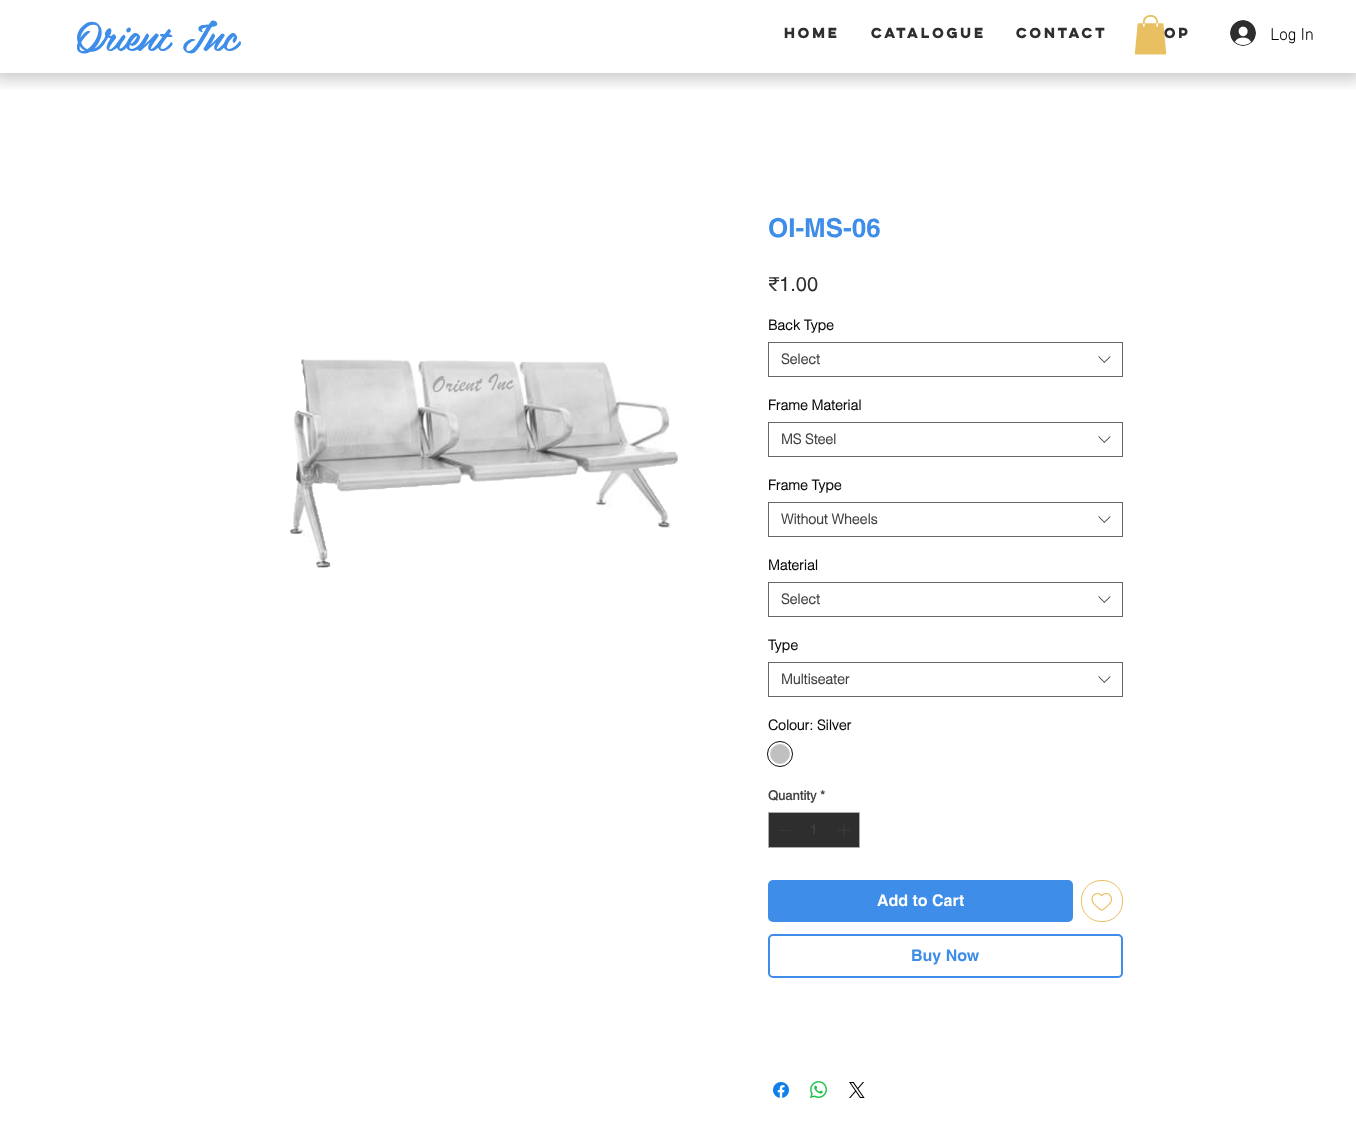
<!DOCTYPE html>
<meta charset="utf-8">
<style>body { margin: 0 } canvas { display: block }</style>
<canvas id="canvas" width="1356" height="1132"></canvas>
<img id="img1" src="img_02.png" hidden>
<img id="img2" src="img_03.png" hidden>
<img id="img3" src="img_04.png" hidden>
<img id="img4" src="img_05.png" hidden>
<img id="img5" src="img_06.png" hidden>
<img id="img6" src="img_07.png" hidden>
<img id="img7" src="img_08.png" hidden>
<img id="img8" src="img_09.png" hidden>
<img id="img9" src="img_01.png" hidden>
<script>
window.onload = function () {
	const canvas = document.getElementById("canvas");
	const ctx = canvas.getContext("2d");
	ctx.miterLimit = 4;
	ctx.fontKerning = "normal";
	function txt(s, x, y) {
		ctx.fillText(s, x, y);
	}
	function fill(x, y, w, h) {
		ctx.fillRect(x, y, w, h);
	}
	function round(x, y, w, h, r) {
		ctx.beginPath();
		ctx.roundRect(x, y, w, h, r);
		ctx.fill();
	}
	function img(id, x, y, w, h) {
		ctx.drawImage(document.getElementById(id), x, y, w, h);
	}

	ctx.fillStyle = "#FFFFFF";
	fill(0, 0, 1356, 1132);
	ctx.save();
	ctx.beginPath();
	ctx.rect(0, 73, 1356, 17);
	ctx.clip();
	ctx.fillStyle = "rgba(0, 0, 0, 0.2)";
	ctx.filter = "blur(7.5px)";
	ctx.beginPath();
	ctx.rect(-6, -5, 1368, 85);
	ctx.fill();
	ctx.filter = "none";
	ctx.restore();
	img("img1", 1230, 20, 26, 26);
	img("img2", 290, 359, 388, 209);
	ctx.strokeStyle = "#666666";
	ctx.strokeRect(768.5, 342.5, 354, 34);
	img("img3", 1098, 356, 13, 7);
	ctx.strokeRect(768.5, 422.5, 354, 34);
	img("img3", 1098, 436, 13, 7);
	ctx.strokeRect(768.5, 502.5, 354, 34);
	img("img3", 1098, 516, 13, 7);
	ctx.strokeRect(768.5, 582.5, 354, 34);
	img("img3", 1098, 596, 13, 7);
	ctx.strokeRect(768.5, 662.5, 354, 34);
	img("img3", 1098, 676, 13, 7);
	ctx.beginPath();
	ctx.arc(780, 754, 12.5, 0, Math.PI * 2);
	ctx.strokeStyle = "#0A0A0A";
	ctx.stroke();
	ctx.fillStyle = "#C0C0C0";
	ctx.beginPath();
	ctx.arc(780, 754, 9.5, 0, Math.PI * 2);
	ctx.fill();
	ctx.strokeStyle = "#C9C9C9";
	ctx.stroke();
	ctx.fillStyle = "#2D2E2D";
	ctx.beginPath();
	ctx.rect(768.5, 812.5, 91, 35);
	ctx.fill();
	ctx.strokeStyle = "#ABABAB";
	ctx.stroke();
	ctx.fillStyle = "#424242";
	ctx.beginPath();
	ctx.moveTo(791, 830);
	ctx.lineTo(791, 830.5);
	ctx.lineTo(779, 830.5);
	ctx.lineTo(779, 830);
	ctx.closePath();
	ctx.fill("evenodd");
	img("img4", 838, 824, 12, 12);
	ctx.fillStyle = "#3D8DE9";
	round(768, 880, 305, 42, 5);
	ctx.beginPath();
	ctx.roundRect(1081.5, 880.5, 41, 41, 19.5);
	ctx.strokeStyle = "#E8C061";
	ctx.stroke();
	img("img5", 1091, 893, 22, 18);
	ctx.beginPath();
	ctx.roundRect(769, 935, 353, 42, 4);
	ctx.strokeStyle = "#3D8DE9";
	ctx.lineWidth = 2;
	ctx.stroke();
	img("img6", 773, 1082, 16, 16);
	img("img7", 810, 1081, 17, 17);
	img("img8", 849, 1082, 16, 16);
	ctx.font = "40px 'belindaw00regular'";
	txt("Orient Inc", 76, 51);
	ctx.font = "bold 13px 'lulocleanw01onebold'";
	ctx.fillStyle = "#2D2E2D";
	txt("Home", 784, 38);
	txt("Catalogue", 871, 38);
	txt("Contact", 1016, 38);
	txt("op", 1164, 38);
	img("img9", 1134, 15, 33, 40);
	ctx.font = "bold 17px 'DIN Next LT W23'";
	ctx.fillStyle = "#000000";
	txt("Log In", 1270, 40);
	ctx.font = "bold 26px helvetica";
	ctx.fillStyle = "#3D8DE9";
	txt("OI-MS-06", 768, 237);
	ctx.font = "20px helvetica";
	ctx.fillStyle = "#2D2E2D";
	txt("₹1.00", 768, 291);
	ctx.font = "bold 14px 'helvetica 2'";
	ctx.fillStyle = "#0A0A0A";
	txt("Back Type", 768, 330);
	ctx.fillStyle = "#424242";
	txt("Select", 781, 364);
	ctx.fillStyle = "#0A0A0A";
	txt("Frame Material", 768, 410);
	ctx.fillStyle = "#424242";
	txt("MS Steel", 781, 444);
	ctx.fillStyle = "#0A0A0A";
	txt("Frame Type", 768, 490);
	ctx.fillStyle = "#424242";
	txt("Without Wheels", 781, 524);
	ctx.fillStyle = "#0A0A0A";
	txt("Material", 768, 570);
	ctx.fillStyle = "#424242";
	txt("Select", 781, 604);
	ctx.fillStyle = "#0A0A0A";
	txt("Type", 768, 650);
	ctx.fillStyle = "#424242";
	txt("Multiseater", 781, 684);
	ctx.fillStyle = "#0A0A0A";
	txt("Colour: Silver", 768, 730);
	ctx.font = "bold 13px 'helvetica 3'";
	ctx.fillStyle = "#424242";
	txt("Quantity", 768, 800);
	txt("*", 820, 800);
	txt("1", 810, 834);
	ctx.font = "bold 16px helvetica";
	ctx.fillStyle = "#FFFFFF";
	txt("Add to Cart", 877, 906);
	ctx.fillStyle = "#3D8DE9";
	txt("Buy Now", 911, 961);
};
</script>
